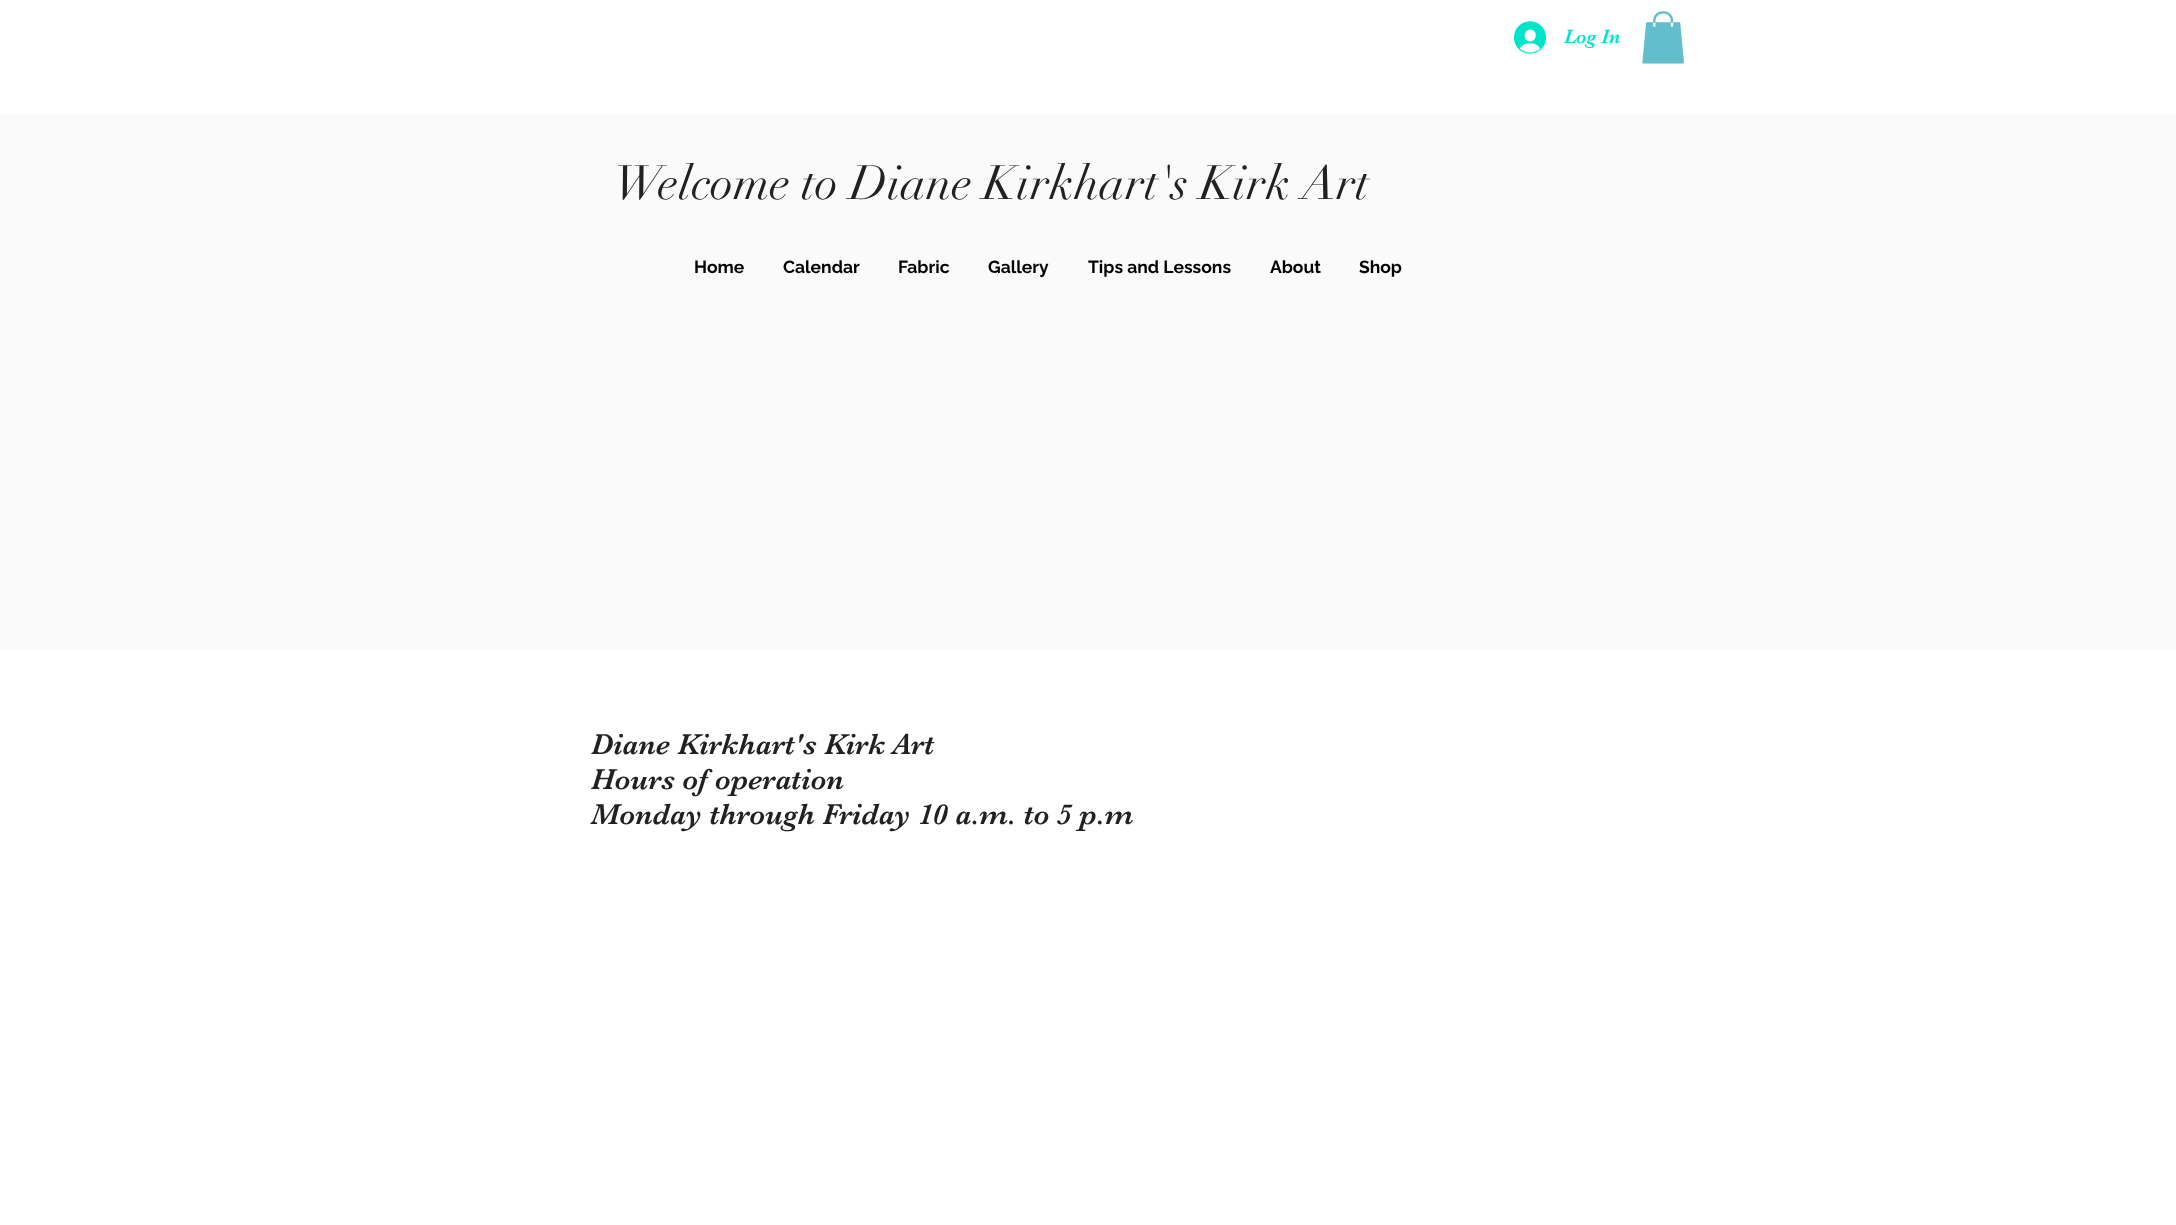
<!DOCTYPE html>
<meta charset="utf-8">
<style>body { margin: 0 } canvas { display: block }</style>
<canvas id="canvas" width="2176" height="1225"></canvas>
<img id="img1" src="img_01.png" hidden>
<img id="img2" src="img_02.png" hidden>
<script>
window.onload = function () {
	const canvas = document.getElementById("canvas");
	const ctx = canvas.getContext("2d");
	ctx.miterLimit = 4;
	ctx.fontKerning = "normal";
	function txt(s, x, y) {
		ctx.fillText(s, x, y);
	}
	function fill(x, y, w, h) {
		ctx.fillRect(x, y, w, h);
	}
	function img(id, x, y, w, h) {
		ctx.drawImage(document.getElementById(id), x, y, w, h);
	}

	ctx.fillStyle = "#FFFFFF";
	fill(0, 0, 2176, 1225);
	img("img1", 1514, 21, 32, 33);
	img("img2", 1642, 11, 42, 53);
	ctx.fillStyle = "#FAFAFA";
	fill(0, 114, 2176, 535);
	ctx.font = "20px 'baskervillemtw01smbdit'";
	ctx.fillStyle = "#00E5C9";
	txt("Log In", 1564, 43);
	ctx.font = "47.5px didot";
	ctx.fillStyle = "#212121";
	txt("Welcome to Diane Kirkhart's Kirk Art", 614, 199);
	ctx.font = "bold 17.5px Raleway";
	ctx.fillStyle = "#000000";
	txt("Home", 694, 273);
	txt("Calendar", 783, 273);
	txt("Fabric", 898, 273);
	txt("Gallery", 988, 273);
	txt("Tips and Lessons", 1088, 273);
	txt("About", 1270, 273);
	txt("Shop", 1359, 273);
	ctx.font = "30px 'baskervillemtw01smbdit'";
	ctx.fillStyle = "#212121";
	txt("Diane Kirkhart's Kirk Art", 591, 754);
	txt("Hours of operation", 591, 789);
	txt("Monday through Friday 10 a.m. to 5 p.m", 591, 824);
};
</script>
